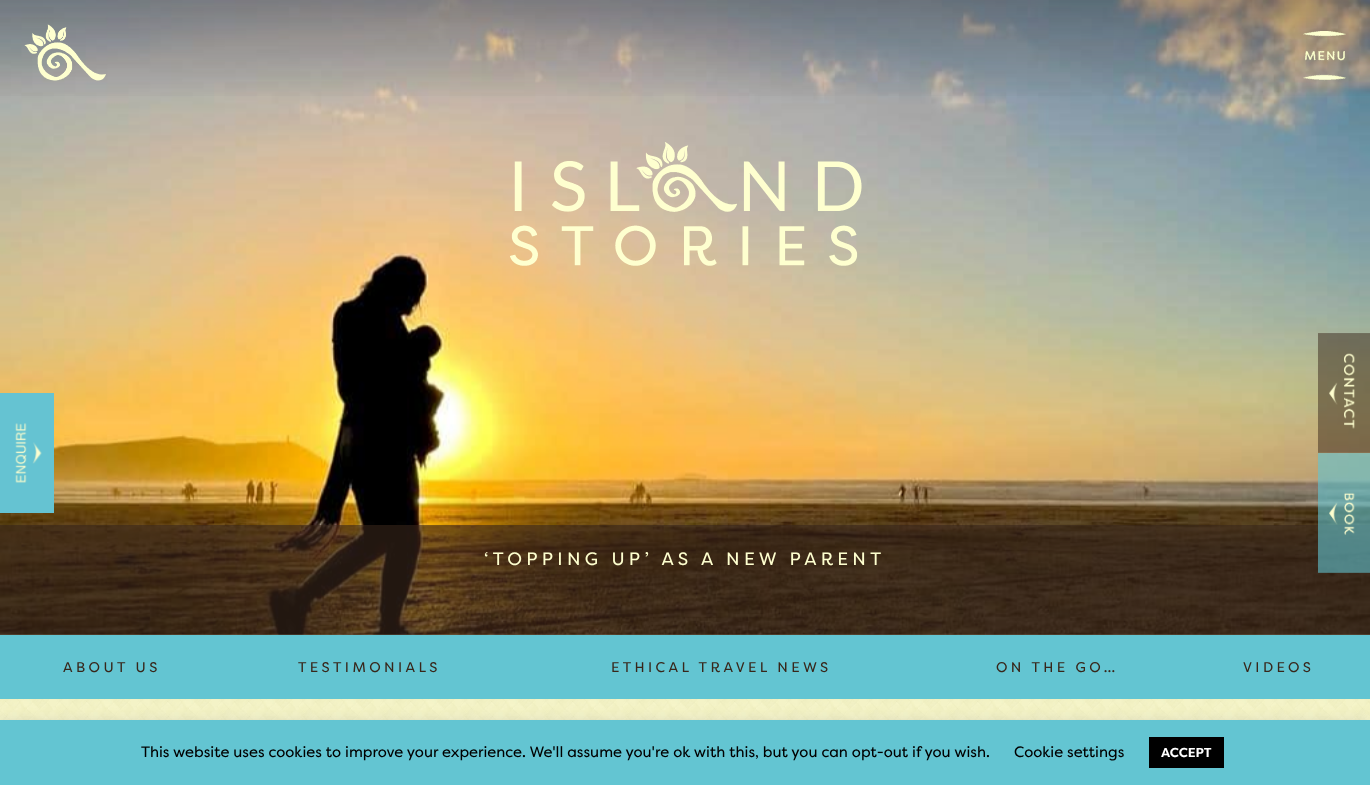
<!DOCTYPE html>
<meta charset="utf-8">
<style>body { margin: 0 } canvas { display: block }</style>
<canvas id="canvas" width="1370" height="785"></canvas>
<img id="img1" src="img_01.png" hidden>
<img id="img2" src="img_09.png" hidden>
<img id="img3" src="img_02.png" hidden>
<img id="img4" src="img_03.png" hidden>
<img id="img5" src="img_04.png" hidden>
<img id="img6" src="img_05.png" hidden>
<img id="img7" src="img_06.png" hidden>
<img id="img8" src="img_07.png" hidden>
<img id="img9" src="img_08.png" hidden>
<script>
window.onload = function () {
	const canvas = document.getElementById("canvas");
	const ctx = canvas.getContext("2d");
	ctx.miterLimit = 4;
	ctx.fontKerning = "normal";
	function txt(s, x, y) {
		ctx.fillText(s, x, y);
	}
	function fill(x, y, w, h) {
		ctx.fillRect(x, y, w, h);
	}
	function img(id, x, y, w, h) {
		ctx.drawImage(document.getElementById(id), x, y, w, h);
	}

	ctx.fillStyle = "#FFFFFF";
	fill(0, 0, 1370, 785);
	img("img1", 0, 634, 1370, 86);
	img("img2", 0, 0, 1370, 635);
	img("img3", 0, 0, 1370, 96);
	img("img4", 24, 24, 82, 57);
	img("img5", 1303, 31, 43, 50);
	ctx.fillStyle = "#65C3D2";
	fill(0, 393, 54, 120);
	img("img6", 15, 423, 27, 60);
	img("img7", 1318, 333, 52, 120);
	ctx.fillStyle = "rgba(56, 38, 26, 0.6)";
	fill(0, 525, 1370, 110);
	img("img8", 1318, 453, 52, 120);
	img("img9", 510, 142, 352, 124);
	ctx.fillStyle = "#63C5D2";
	fill(0, 635, 1370, 64);
	ctx.fillStyle = "rgba(172, 171, 171, 0.3)";
	ctx.filter = "blur(5px)";
	ctx.beginPath();
	ctx.rect(0, 719, 1370, 65);
	ctx.fill();
	ctx.filter = "none";
	ctx.fillStyle = "#63C5D2";
	fill(0, 720, 1370, 65);
	ctx.fillStyle = "#000000";
	fill(1149, 737, 75, 31);
	ctx.letterSpacing = "4.3px";
	ctx.font = "18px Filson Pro";
	ctx.fillStyle = "#FEFFCF";
	txt("‘TOPPING UP’ AS A NEW PARENT", 484, 565);
	ctx.letterSpacing = "3.4px";
	ctx.font = "14px Filson Pro";
	ctx.fillStyle = "#38261A";
	txt("ABOUT US", 63, 672);
	txt("TESTIMONIALS", 298, 672);
	txt("ETHICAL TRAVEL NEWS", 611, 672);
	txt("ON THE GO…", 996, 672);
	txt("VIDEOS", 1243, 672);
	ctx.letterSpacing = "0px";
	ctx.font = "15px Filson Pro";
	ctx.fillStyle = "#000000";
	txt("This website uses cookies to improve your experience. We'll assume you're ok with this, but you can opt-out if you wish.", 141, 757);
	txt("Cookie settings", 1014, 757);
	ctx.font = "bold 13px Filson Pro";
	ctx.fillStyle = "#FFFFFF";
	txt("ACCEPT", 1161, 757);
};
</script>
